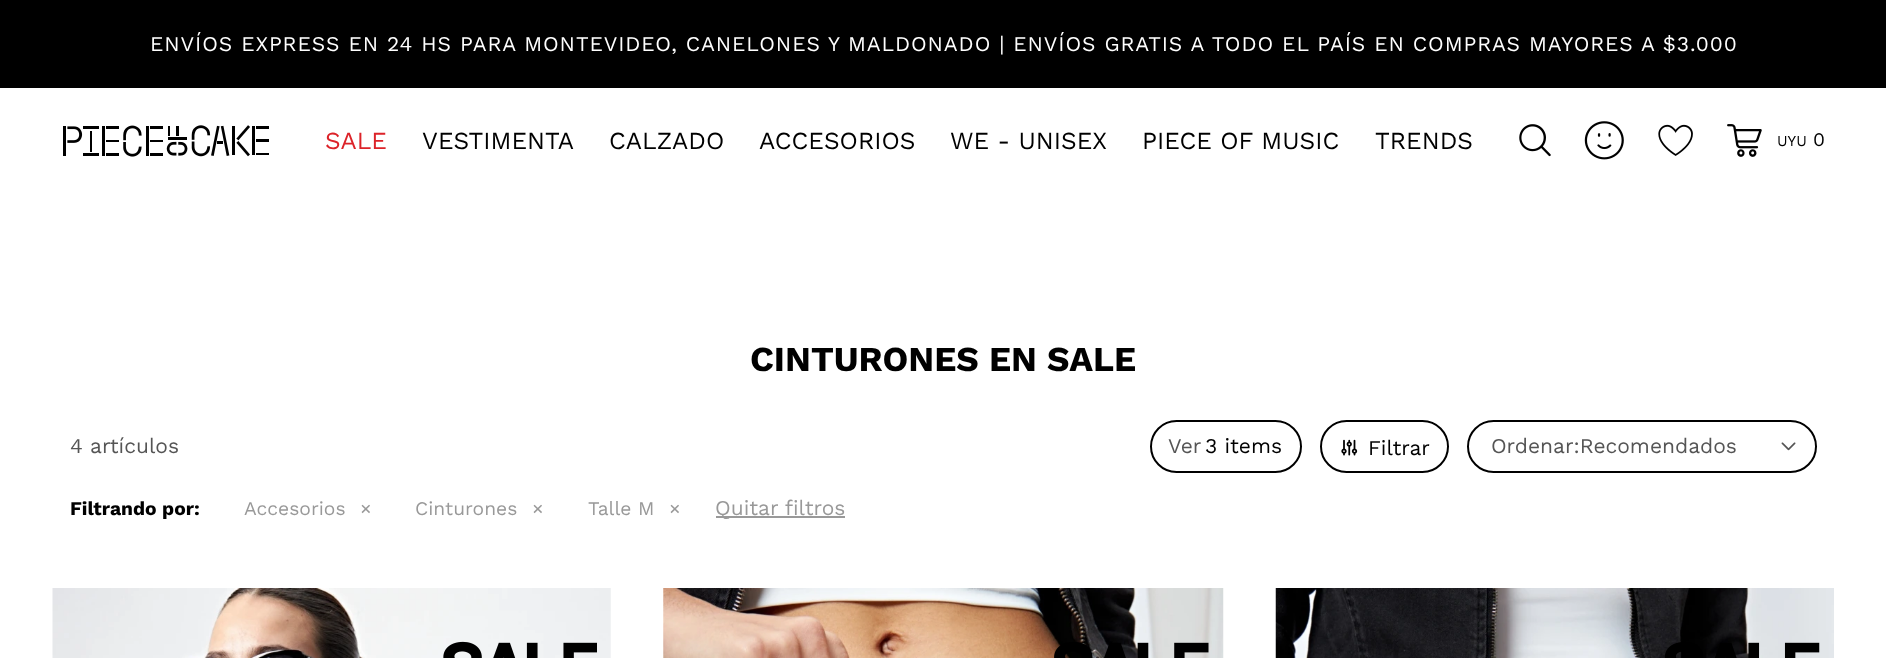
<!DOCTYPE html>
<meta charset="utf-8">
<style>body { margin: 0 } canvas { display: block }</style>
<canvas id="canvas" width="1886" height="658"></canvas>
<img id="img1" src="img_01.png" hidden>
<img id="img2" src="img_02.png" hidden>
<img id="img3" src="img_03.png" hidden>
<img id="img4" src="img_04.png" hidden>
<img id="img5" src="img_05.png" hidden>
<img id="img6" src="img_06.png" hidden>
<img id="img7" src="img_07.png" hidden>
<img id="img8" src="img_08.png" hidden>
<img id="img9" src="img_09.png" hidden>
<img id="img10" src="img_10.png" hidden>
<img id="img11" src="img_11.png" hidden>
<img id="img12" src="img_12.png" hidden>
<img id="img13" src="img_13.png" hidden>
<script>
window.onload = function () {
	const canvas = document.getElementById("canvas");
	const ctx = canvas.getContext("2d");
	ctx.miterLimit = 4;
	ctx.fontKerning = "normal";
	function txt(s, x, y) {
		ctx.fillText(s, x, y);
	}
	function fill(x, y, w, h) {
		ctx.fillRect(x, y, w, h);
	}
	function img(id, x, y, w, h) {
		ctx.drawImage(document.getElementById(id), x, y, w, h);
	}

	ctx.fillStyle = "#FFFFFF";
	fill(0, 0, 1886, 658);
	ctx.fillStyle = "#000000";
	fill(0, 0, 1886, 88);
	img("img1", 63, 125, 206, 32);
	img("img2", 1519, 124, 32, 33);
	img("img3", 1584, 121, 40, 39);
	img("img4", 1658, 124, 35, 32);
	img("img5", 1727, 124, 35, 33);
	ctx.beginPath();
	ctx.roundRect(1151, 421, 150, 51, 25.5);
	ctx.strokeStyle = "#000000";
	ctx.lineWidth = 2;
	ctx.stroke();
	ctx.beginPath();
	ctx.roundRect(1321, 421, 127, 51, 25.5);
	ctx.stroke();
	img("img6", 1341, 439, 17, 17);
	img("img7", 1781, 442, 15, 9);
	ctx.beginPath();
	ctx.roundRect(1468, 421, 348, 51, 25.5);
	ctx.stroke();
	ctx.fillStyle = "#999999";
	fill(716, 516, 129, 2);
	img("img8", 52, 588, 559, 70);
	img("img9", 443, 641, 154, 17);
	img("img10", 663, 588, 561, 70);
	img("img11", 1054, 642, 155, 16);
	img("img12", 1275, 588, 559, 70);
	img("img13", 1664, 642, 156, 16);
	ctx.letterSpacing = "0.88px";
	ctx.font = "21px Work Sans";
	ctx.fillStyle = "#FFFFFF";
	txt("ENVÍOS EXPRESS EN 24 HS PARA MONTEVIDEO, CANELONES Y MALDONADO | ENVÍOS GRATIS A TODO EL PAÍS EN COMPRAS MAYORES A $3.000", 150, 51);
	ctx.letterSpacing = "0px";
	ctx.font = "24.5px Work Sans";
	ctx.fillStyle = "#DC2329";
	txt("SALE", 325, 149);
	ctx.fillStyle = "#000000";
	txt("VESTIMENTA", 422, 149);
	txt("CALZADO", 609, 149);
	txt("ACCESORIOS", 759, 149);
	txt("WE - UNISEX", 950, 149);
	txt("PIECE OF MUSIC", 1142, 149);
	txt("TRENDS", 1375, 149);
	ctx.font = "15px Work Sans";
	txt("UYU", 1777, 146);
	ctx.font = "19.25px Work Sans";
	txt("0", 1813, 146);
	ctx.font = "bold 35px Work Sans";
	txt("CINTURONES EN SALE", 750, 371);
	ctx.font = "21px Work Sans";
	ctx.fillStyle = "#555555";
	txt("4 artículos", 70, 453);
	txt("Ver", 1168, 453);
	ctx.fillStyle = "#000000";
	txt("3 items", 1205, 453);
	txt("Filtrar", 1368, 455);
	ctx.fillStyle = "#555555";
	txt("Ordenar:Recomendados", 1491, 453);
	ctx.font = "bold 19.25px Work Sans";
	ctx.fillStyle = "#000000";
	txt("Filtrando por:", 70, 515);
	ctx.font = "19.25px Work Sans";
	ctx.fillStyle = "#999999";
	txt("Accesorios", 244, 515);
	txt("×", 360, 515);
	txt("Cinturones", 415, 515);
	txt("×", 532, 515);
	txt("Talle M", 588, 515);
	txt("×", 669, 515);
	ctx.font = "21px Work Sans";
	txt("Quitar filtros", 715, 515);
};
</script>
